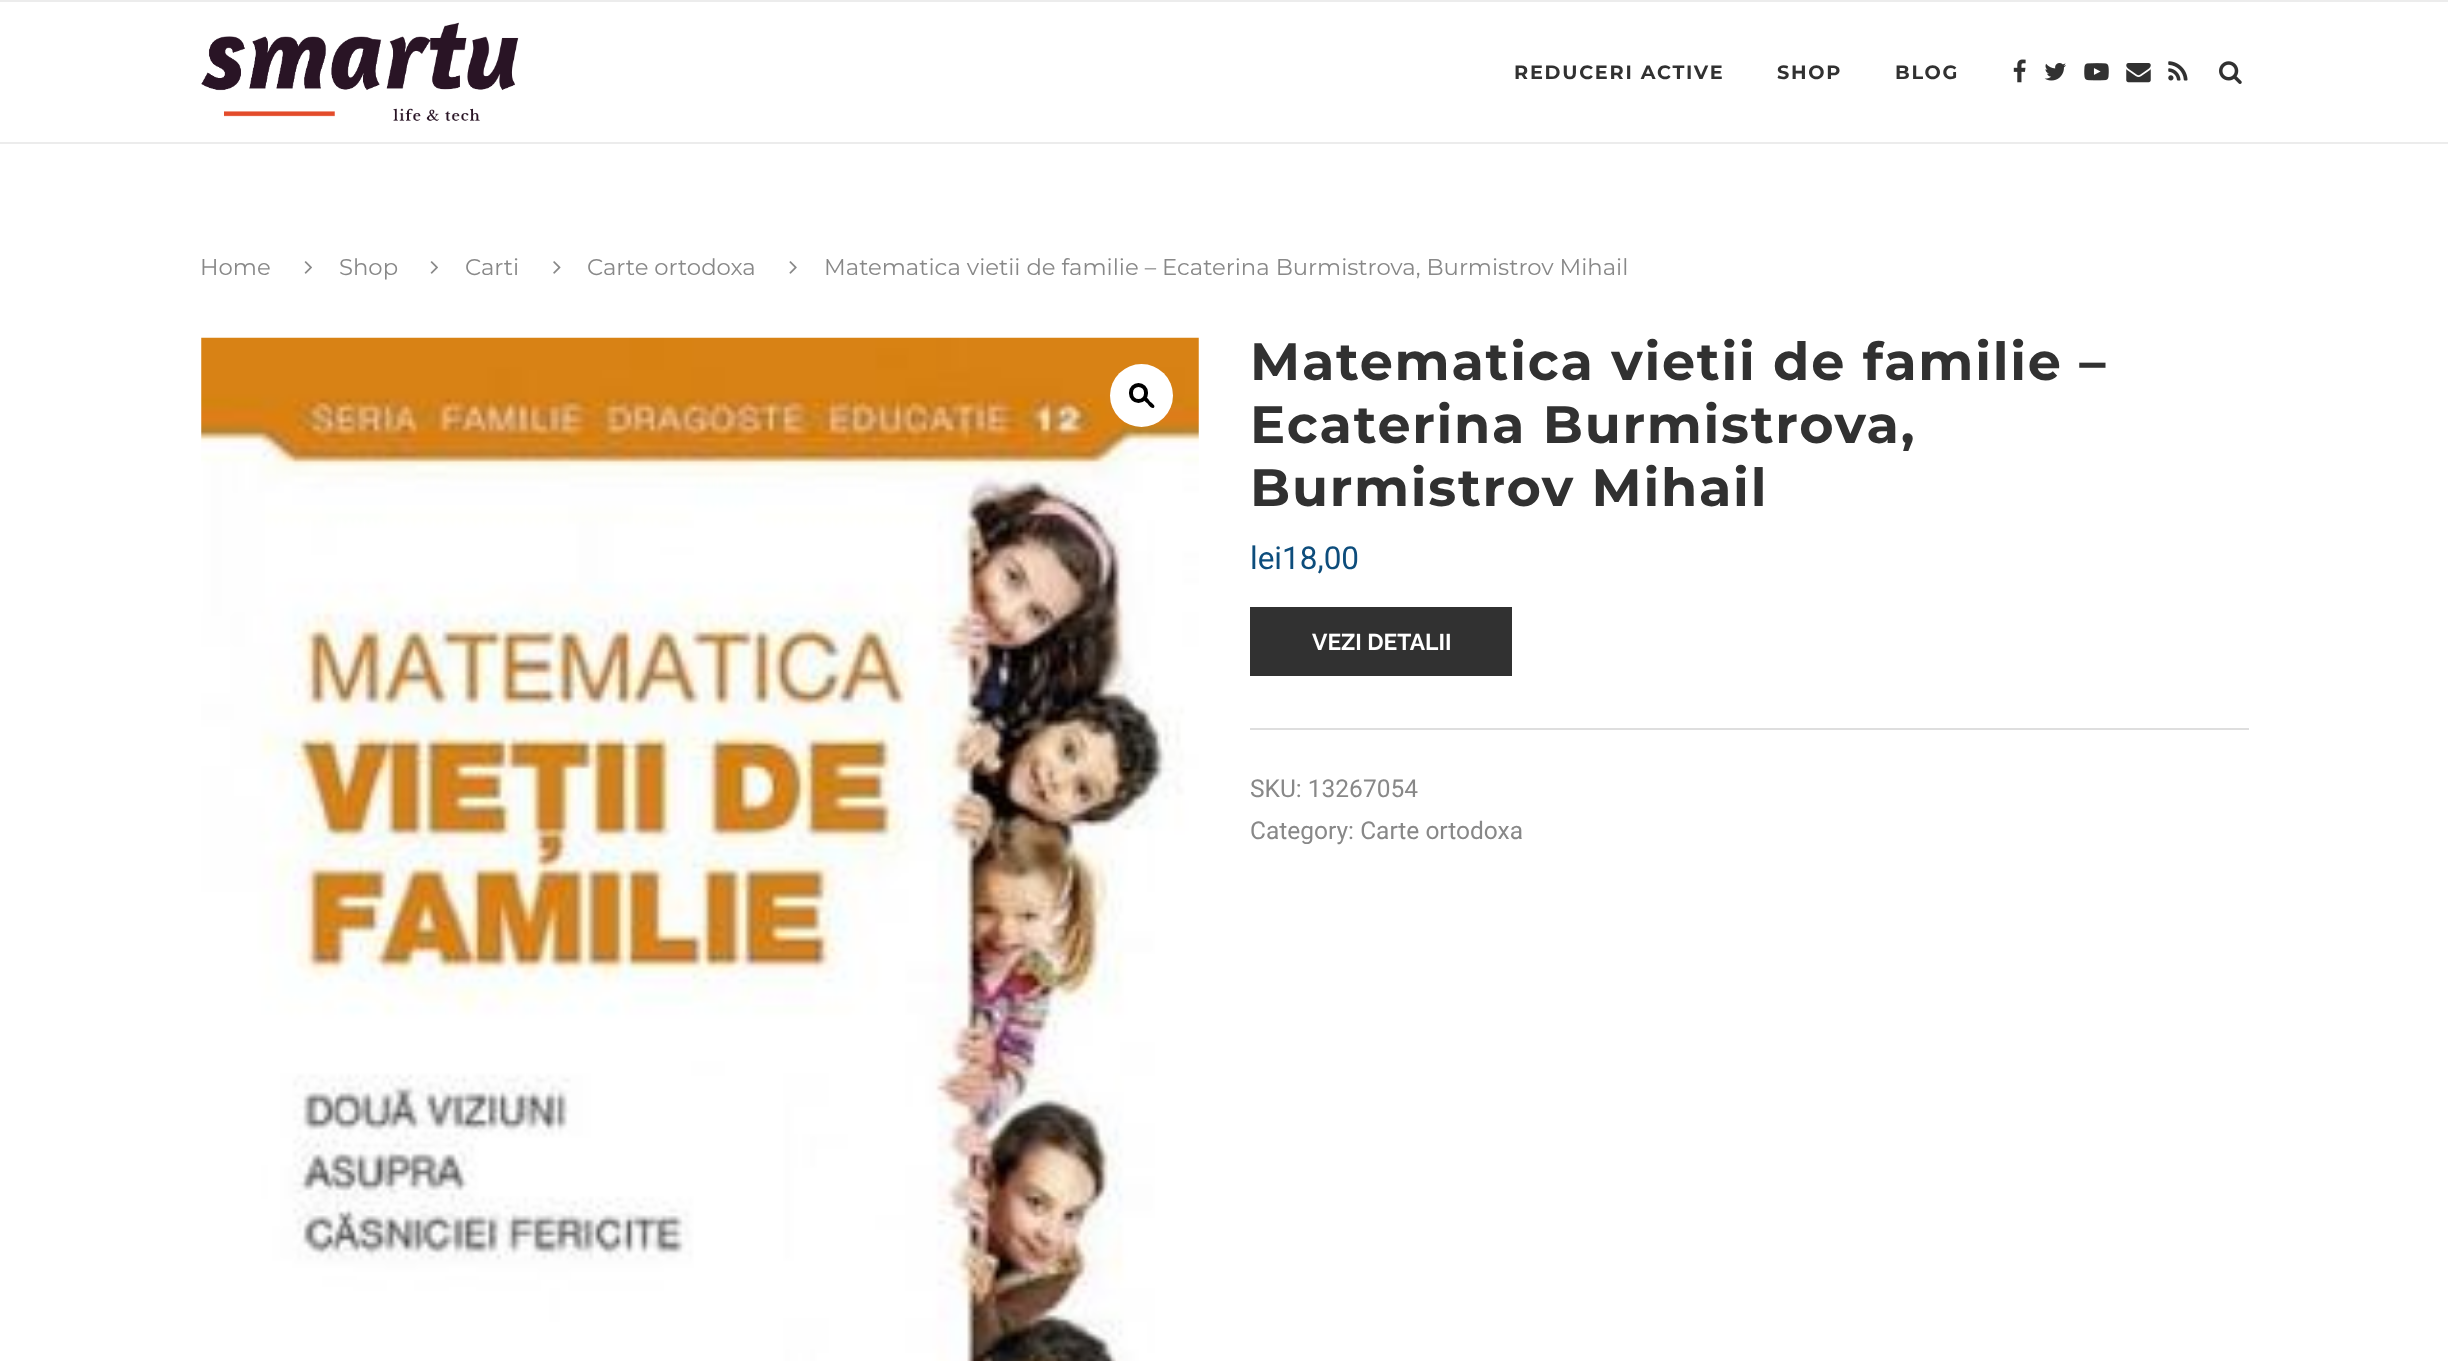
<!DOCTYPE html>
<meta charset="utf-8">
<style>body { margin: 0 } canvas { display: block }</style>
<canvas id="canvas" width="2448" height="1361"></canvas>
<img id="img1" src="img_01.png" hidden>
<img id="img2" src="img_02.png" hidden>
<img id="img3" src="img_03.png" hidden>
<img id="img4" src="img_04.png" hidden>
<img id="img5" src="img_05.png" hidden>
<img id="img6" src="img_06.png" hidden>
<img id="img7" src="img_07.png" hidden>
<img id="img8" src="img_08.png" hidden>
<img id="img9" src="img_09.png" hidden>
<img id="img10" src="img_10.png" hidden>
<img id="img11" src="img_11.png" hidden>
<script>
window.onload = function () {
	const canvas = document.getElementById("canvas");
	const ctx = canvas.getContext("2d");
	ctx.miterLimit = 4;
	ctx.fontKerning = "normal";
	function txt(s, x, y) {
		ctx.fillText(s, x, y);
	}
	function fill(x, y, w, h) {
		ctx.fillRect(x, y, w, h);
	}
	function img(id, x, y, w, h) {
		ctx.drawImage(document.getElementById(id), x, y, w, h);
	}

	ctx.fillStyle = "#FFFFFF";
	fill(0, 0, 2448, 1361);
	ctx.fillStyle = "#ECECEC";
	fill(0, 0, 2448, 2);
	fill(0, 142, 2448, 2);
	img("img1", 201, 22, 318, 99);
	img("img2", 2013, 59, 13, 24);
	img("img3", 2044, 63, 22, 18);
	img("img4", 2084, 63, 25, 18);
	img("img5", 2126, 63, 25, 20);
	img("img6", 2168, 61, 20, 20);
	img("img7", 2219, 61, 23, 23);
	img("img8", 304, 261, 8, 13);
	img("img8", 430, 261, 8, 13);
	img("img9", 553, 261, 8, 13);
	img("img10", 789, 261, 8, 13);
	img("img11", 201, 337, 998, 1024);
	ctx.fillStyle = "#FFFFFF";
	ctx.beginPath();
	ctx.arc(1141.5, 395.5, 31.5, 0, Math.PI * 2);
	ctx.fill();
	ctx.beginPath();
	ctx.roundRect(1131, 385, 15, 16, 7.5);
	ctx.strokeStyle = "#000000";
	ctx.lineWidth = 4;
	ctx.stroke();
	ctx.fillStyle = "#000000";
	ctx.beginPath();
	ctx.moveTo(1144, 397.5);
	ctx.bezierCurveTo(1146, 395.5, 1149, 400, 1150, 401.5);
	ctx.bezierCurveTo(1151, 402.5, 1156, 405.5, 1154, 407.5);
	ctx.bezierCurveTo(1152, 409.5, 1148.5, 405, 1147.5, 403.5);
	ctx.bezierCurveTo(1146.5, 402.5, 1142, 399.5, 1144, 397.5);
	ctx.closePath();
	ctx.fill();
	ctx.fillStyle = "#313131";
	fill(1250, 607, 262, 69);
	ctx.fillStyle = "#DEDEDE";
	fill(1250, 728, 999, 2);
	ctx.letterSpacing = "1.75px";
	ctx.font = "bold 19.25px Montserrat";
	ctx.fillStyle = "#313131";
	txt("REDUCERI ACTIVE", 1514, 79);
	txt("SHOP", 1777, 79);
	txt("BLOG", 1895, 79);
	ctx.letterSpacing = "0px";
	ctx.font = "22.75px Montserrat";
	ctx.fillStyle = "#888888";
	txt("Home", 200, 275);
	txt("Shop", 339, 275);
	txt("Carti", 465, 275);
	txt("Carte ortodoxa", 587, 275);
	txt("Matematica vietii de familie – Ecaterina Burmistrova, Burmistrov Mihail", 824, 275);
	ctx.letterSpacing = "1.75px";
	ctx.font = "bold 52.5px Montserrat";
	ctx.fillStyle = "#313131";
	txt("Matematica vietii de familie –", 1250, 380);
	txt("Ecaterina Burmistrova,", 1250, 443);
	txt("Burmistrov Mihail", 1250, 506);
	ctx.letterSpacing = "0px";
	ctx.font = "31.5px Roboto";
	ctx.fillStyle = "#0D4D7C";
	txt("lei18,00", 1250, 569);
	ctx.font = "bold 22.75px Raleway";
	ctx.fillStyle = "#FFFFFF";
	txt("VEZI DETALII", 1312, 650);
	ctx.font = "24.5px Roboto";
	ctx.fillStyle = "#888888";
	txt("SKU: 13267054", 1250, 797);
	txt("Category: Carte ortodoxa", 1250, 839);
};
</script>
